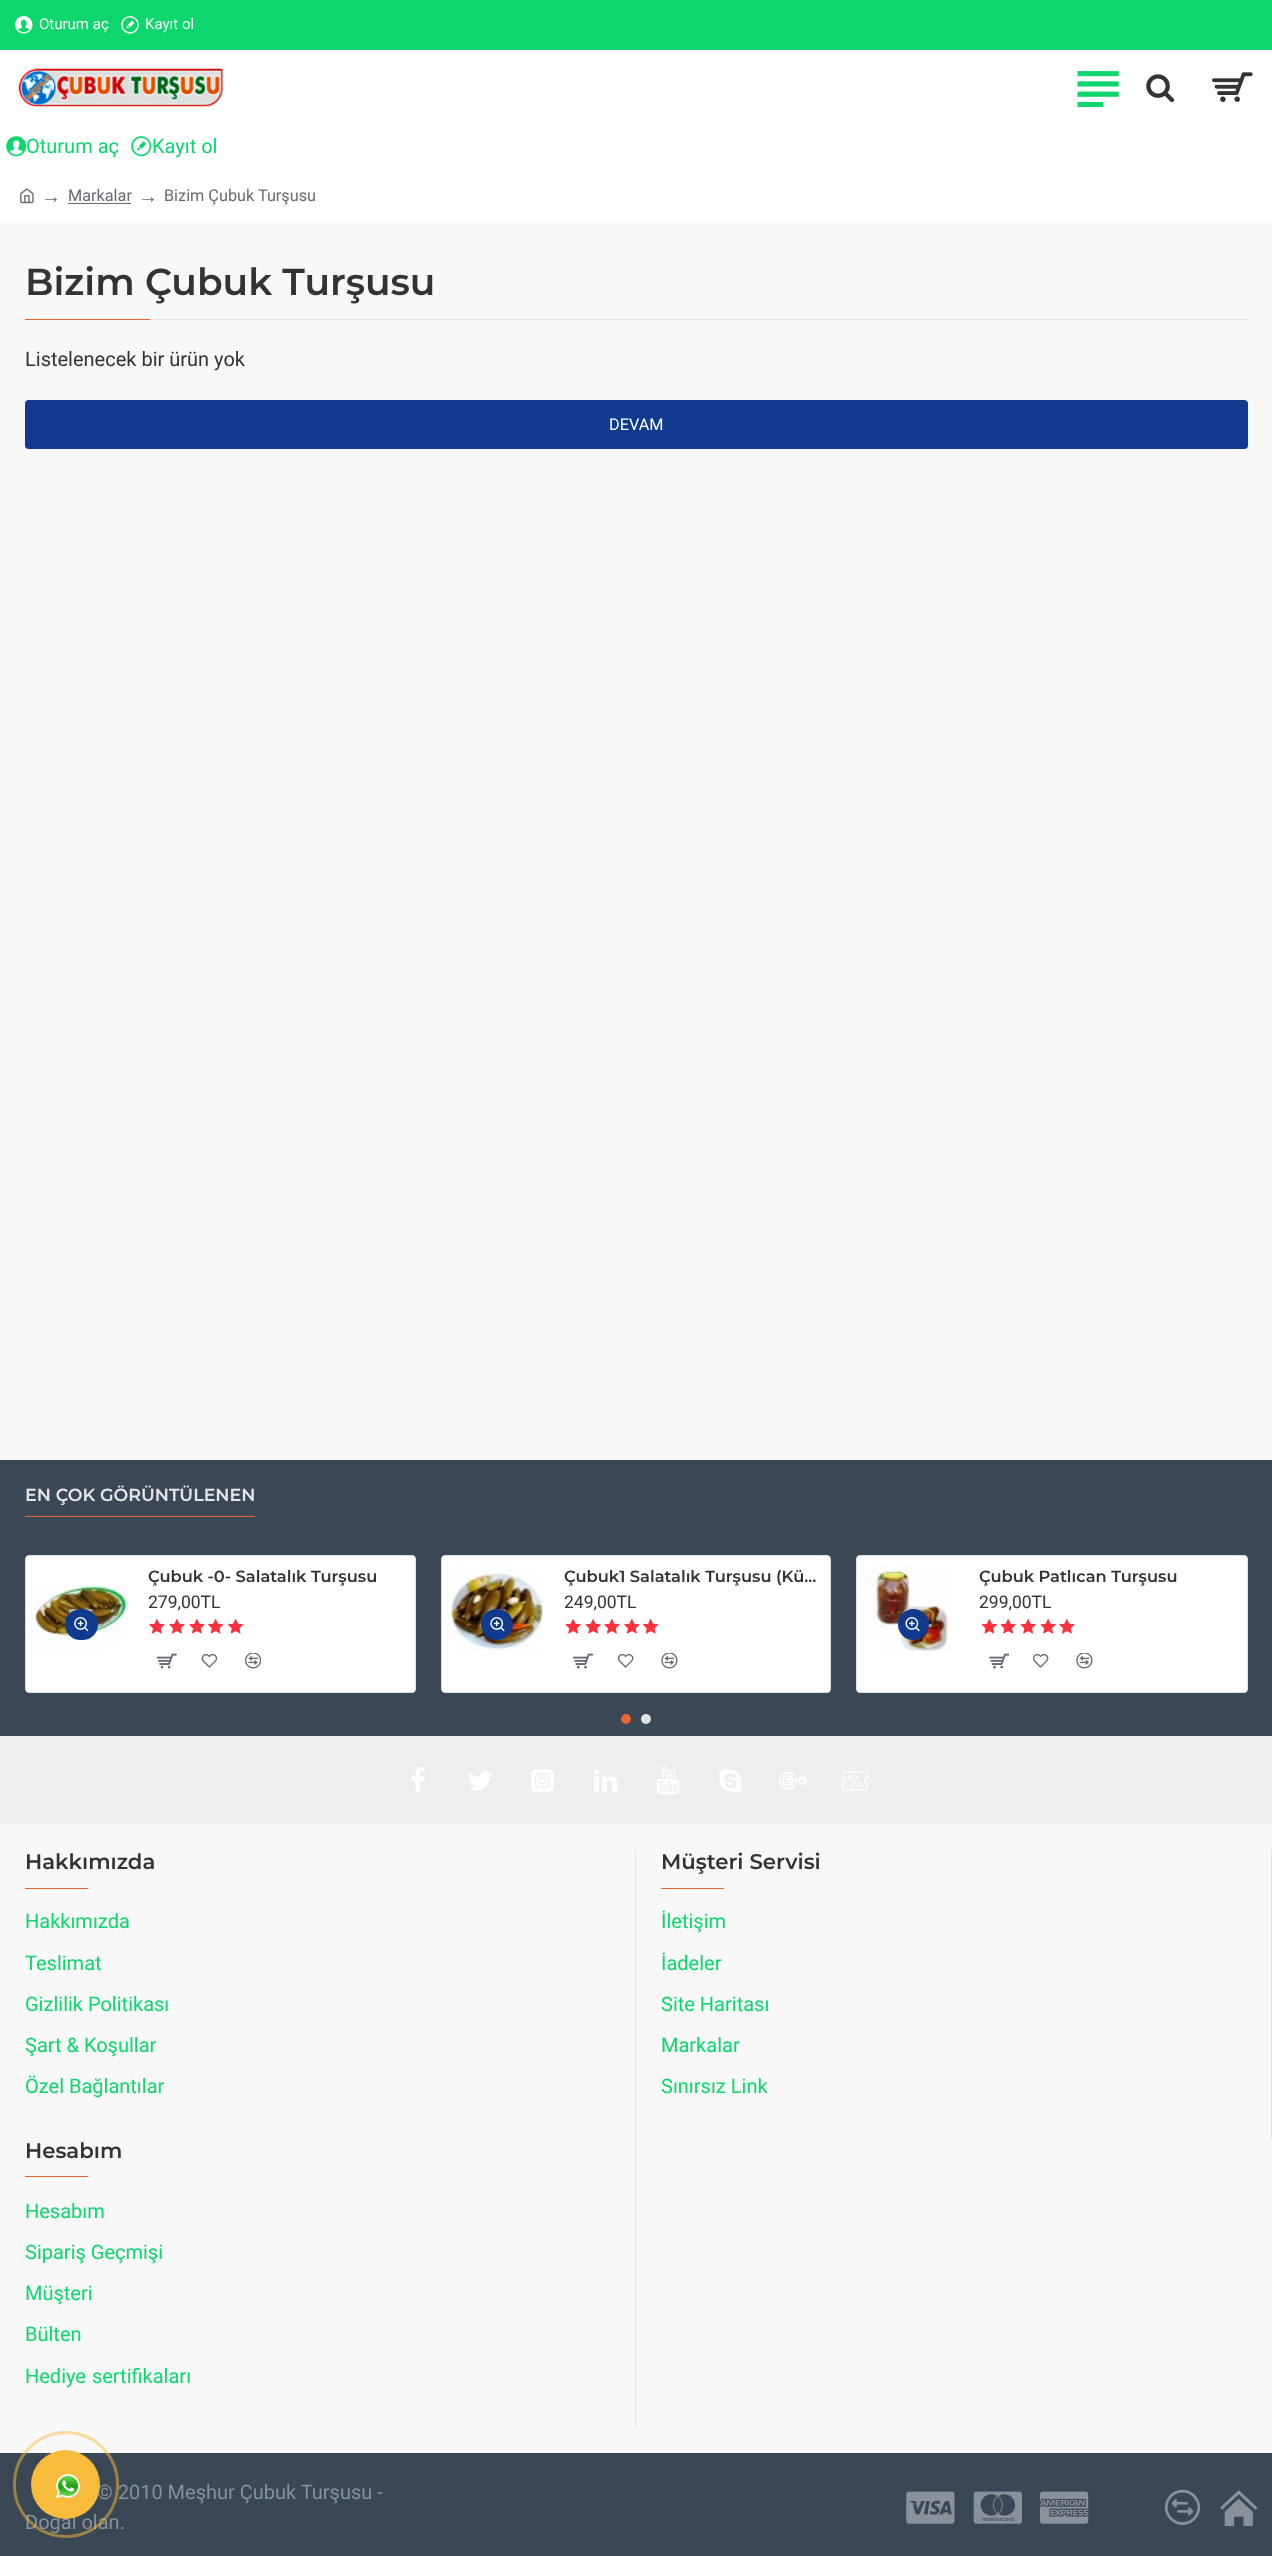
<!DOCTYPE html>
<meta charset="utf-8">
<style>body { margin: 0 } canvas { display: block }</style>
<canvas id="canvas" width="1272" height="2556"></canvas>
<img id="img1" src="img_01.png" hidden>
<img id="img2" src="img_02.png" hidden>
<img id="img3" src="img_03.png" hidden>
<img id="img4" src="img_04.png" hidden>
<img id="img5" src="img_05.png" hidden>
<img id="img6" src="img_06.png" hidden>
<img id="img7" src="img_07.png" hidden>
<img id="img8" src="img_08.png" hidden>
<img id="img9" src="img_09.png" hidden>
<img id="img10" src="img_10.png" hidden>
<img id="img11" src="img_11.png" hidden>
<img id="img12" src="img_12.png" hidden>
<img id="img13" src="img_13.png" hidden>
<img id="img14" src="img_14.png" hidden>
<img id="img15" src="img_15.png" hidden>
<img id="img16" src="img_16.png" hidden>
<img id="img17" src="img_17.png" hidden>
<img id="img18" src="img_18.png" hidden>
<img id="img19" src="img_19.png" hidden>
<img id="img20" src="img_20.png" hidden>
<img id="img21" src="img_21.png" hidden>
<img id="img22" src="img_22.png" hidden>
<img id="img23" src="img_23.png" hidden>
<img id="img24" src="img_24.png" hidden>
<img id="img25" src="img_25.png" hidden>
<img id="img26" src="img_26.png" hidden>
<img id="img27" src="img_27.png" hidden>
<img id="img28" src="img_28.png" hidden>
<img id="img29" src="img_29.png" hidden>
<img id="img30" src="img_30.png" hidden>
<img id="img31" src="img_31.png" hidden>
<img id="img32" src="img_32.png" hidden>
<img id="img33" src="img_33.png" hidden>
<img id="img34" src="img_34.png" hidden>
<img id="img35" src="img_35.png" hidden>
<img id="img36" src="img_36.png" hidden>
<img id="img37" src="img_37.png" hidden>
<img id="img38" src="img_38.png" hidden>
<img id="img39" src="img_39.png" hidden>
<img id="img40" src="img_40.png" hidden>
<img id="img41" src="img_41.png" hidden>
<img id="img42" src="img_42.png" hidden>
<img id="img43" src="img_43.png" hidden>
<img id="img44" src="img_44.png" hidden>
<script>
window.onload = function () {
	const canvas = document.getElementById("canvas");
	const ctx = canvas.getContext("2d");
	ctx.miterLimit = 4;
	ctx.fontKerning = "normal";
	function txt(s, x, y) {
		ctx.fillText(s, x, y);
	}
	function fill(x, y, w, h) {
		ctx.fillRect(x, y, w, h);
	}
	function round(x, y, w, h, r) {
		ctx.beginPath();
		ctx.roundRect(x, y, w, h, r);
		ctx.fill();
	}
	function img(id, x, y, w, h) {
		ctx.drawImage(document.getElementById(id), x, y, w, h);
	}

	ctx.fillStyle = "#F8F8F8";
	fill(0, 0, 1272, 2556);
	ctx.fillStyle = "#0DD66D";
	fill(0, 0, 1272, 50);
	img("img1", 15, 16, 18, 18);
	img("img2", 121, 16, 18, 18);
	ctx.fillStyle = "#FFFFFF";
	fill(0, 50, 1272, 173);
	img("img3", 18, 68, 205, 39);
	img("img4", 1077, 71, 42, 36);
	img("img5", 1146, 74, 29, 29);
	img("img6", 1212, 72, 41, 30);
	img("img7", 6, 136, 21, 21);
	img("img8", 131, 136, 21, 21);
	img("img9", 20, 188, 14, 16);
	ctx.fillStyle = "#696973";
	fill(68, 203, 63, 1);
	ctx.fillStyle = "#E2E2E2";
	fill(150, 319, 1098, 1);
	ctx.fillStyle = "#E96631";
	fill(25, 319, 125, 1);
	ctx.fillStyle = "#0F3A8D";
	round(25, 400, 1223, 49, 4);
	ctx.fillStyle = "#3A4754";
	fill(0, 1460, 1272, 276);
	ctx.fillStyle = "#E96631";
	fill(25, 1516, 230, 1);
	ctx.fillStyle = "#FFFFFF";
	ctx.beginPath();
	ctx.roundRect(25.5, 1555.5, 390, 137, 3.5);
	ctx.fill();
	ctx.strokeStyle = "#E2E2E2";
	ctx.stroke();
	img("img10", 35, 1585, 93, 66);
	ctx.fillStyle = "#0F3A8D";
	round(65, 1609, 33, 31, 15.5);
	img("img11", 74, 1617, 15, 15);
	img("img12", 149, 1619, 16, 15);
	img("img13", 149, 1619, 16, 15);
	img("img12", 169, 1619, 16, 15);
	img("img13", 169, 1619, 16, 15);
	img("img12", 189, 1619, 16, 15);
	img("img13", 189, 1619, 16, 15);
	img("img14", 208, 1619, 16, 15);
	img("img15", 208, 1619, 16, 15);
	img("img14", 228, 1619, 16, 15);
	img("img15", 228, 1619, 16, 15);
	img("img16", 156, 1653, 21, 16);
	img("img17", 201, 1654, 17, 14);
	img("img18", 245, 1653, 16, 16);
	ctx.fillStyle = "#FFFFFF";
	ctx.beginPath();
	ctx.roundRect(441.5, 1555.5, 389, 137, 3.5);
	ctx.fill();
	ctx.stroke();
	img("img19", 451, 1565, 93, 86);
	ctx.fillStyle = "#0F3A8D";
	round(481, 1609, 32, 31, 15.5);
	img("img20", 490, 1617, 15, 15);
	img("img21", 565, 1619, 16, 15);
	img("img22", 565, 1619, 16, 15);
	img("img21", 585, 1619, 16, 15);
	img("img22", 585, 1619, 16, 15);
	img("img12", 604, 1619, 16, 15);
	img("img13", 604, 1619, 16, 15);
	img("img12", 624, 1619, 16, 15);
	img("img13", 624, 1619, 16, 15);
	img("img14", 643, 1619, 16, 15);
	img("img15", 643, 1619, 16, 15);
	img("img23", 573, 1653, 21, 16);
	img("img24", 618, 1654, 16, 14);
	img("img25", 661, 1653, 17, 16);
	ctx.fillStyle = "#FFFFFF";
	ctx.beginPath();
	ctx.roundRect(856.5, 1555.5, 391, 137, 3.5);
	ctx.fill();
	ctx.stroke();
	img("img26", 866, 1565, 86, 86);
	ctx.fillStyle = "#0F3A8D";
	ctx.beginPath();
	ctx.arc(913.5, 1624.5, 15.5, 0, Math.PI * 2);
	ctx.fill();
	img("img27", 905, 1617, 15, 15);
	img("img28", 981, 1619, 16, 15);
	img("img29", 981, 1619, 16, 15);
	img("img21", 1000, 1619, 16, 15);
	img("img22", 1000, 1619, 16, 15);
	img("img21", 1020, 1619, 16, 15);
	img("img22", 1020, 1619, 16, 15);
	img("img21", 1040, 1619, 16, 15);
	img("img22", 1040, 1619, 16, 15);
	img("img12", 1059, 1619, 16, 15);
	img("img13", 1059, 1619, 16, 15);
	img("img30", 989, 1653, 20, 16);
	img("img24", 1033, 1654, 16, 14);
	img("img25", 1076, 1653, 17, 16);
	ctx.fillStyle = "#E96631";
	ctx.beginPath();
	ctx.arc(626, 1719, 5, 0, Math.PI * 2);
	ctx.fill();
	ctx.fillStyle = "#E2E2E2";
	ctx.beginPath();
	ctx.arc(646, 1719, 5, 0, Math.PI * 2);
	ctx.fill();
	ctx.fillStyle = "#EEEEEE";
	fill(0, 1736, 1272, 88);
	img("img31", 411, 1767, 14, 26);
	img("img32", 469, 1771, 23, 20);
	img("img33", 531, 1769, 23, 23);
	img("img34", 594, 1769, 24, 23);
	img("img35", 656, 1767, 24, 28);
	img("img36", 719, 1769, 24, 24);
	img("img37", 779, 1772, 28, 18);
	img("img38", 842, 1771, 26, 20);
	ctx.fillStyle = "#E2E2E2";
	fill(635, 1849, 1, 579);
	ctx.fillStyle = "#E96631";
	fill(25, 1888, 63, 1);
	ctx.fillStyle = "#E2E2E2";
	fill(1271, 1849, 1, 290);
	ctx.fillStyle = "#E96631";
	fill(661, 1888, 63, 1);
	fill(25, 2176, 63, 1);
	ctx.fillStyle = "#3A4754";
	fill(0, 2453, 1272, 103);
	img("img39", 906, 2491, 49, 33);
	img("img40", 973, 2491, 49, 33);
	img("img41", 1040, 2491, 49, 33);
	img("img42", 1164, 2489, 37, 36);
	img("img43", 1220, 2490, 38, 37);
	ctx.font = "15px Roboto";
	ctx.fillStyle = "#FFFFFF";
	txt("Oturum aç", 39, 29);
	txt("Kayıt ol", 145, 29);
	ctx.font = "20px Roboto";
	ctx.fillStyle = "#0DD66D";
	txt("Oturum aç", 26, 153);
	txt("Kayıt ol", 152, 153);
	ctx.font = "20px Liberation Serif";
	ctx.fillStyle = "#696973";
	txt("→", 41, 203);
	ctx.font = "16.25px Roboto";
	txt("Markalar", 68, 201);
	ctx.font = "20px Liberation Serif";
	txt("→", 138, 203);
	ctx.font = "16.25px Roboto";
	txt("Bizim Çubuk Turşusu", 164, 201);
	ctx.font = "100 37.5px Montserrat";
	ctx.fillStyle = "#333333";
	txt("Bizim Çubuk Turşusu", 25, 295);
	ctx.font = "20px Roboto";
	txt("Listelenecek bir ürün yok", 25, 366);
	ctx.font = "16.25px Roboto";
	ctx.fillStyle = "#FFFFFF";
	txt("DEVAM", 609, 430);
	ctx.font = "100 17.5px Montserrat";
	ctx.fillStyle = "#E6E6E6";
	txt("EN ÇOK GÖRÜNTÜLENEN", 25, 1501);
	ctx.font = "100 16.25px Montserrat";
	ctx.fillStyle = "#333333";
	txt("Çubuk -0- Salatalık Turşusu", 148, 1582);
	ctx.font = "17.5px Roboto";
	txt("279,00TL", 148, 1608);
	ctx.font = "100 16.25px Montserrat";
	txt("Çubuk1 Salatalık Turşusu (Kü…", 564, 1582);
	ctx.font = "17.5px Roboto";
	txt("249,00TL", 564, 1608);
	ctx.font = "100 16.25px Montserrat";
	txt("Çubuk Patlıcan Turşusu", 979, 1582);
	ctx.font = "17.5px Roboto";
	txt("299,00TL", 979, 1608);
	ctx.font = "100 21.25px Montserrat";
	txt("Hakkımızda", 25, 1869);
	ctx.font = "20px Roboto";
	ctx.fillStyle = "#0DD66D";
	txt("Hakkımızda", 25, 1928);
	txt("Teslimat", 25, 1970);
	txt("Gizlilik Politikası", 25, 2011);
	txt("Şart & Koşullar", 25, 2052);
	txt("Özel Bağlantılar", 25, 2093);
	ctx.font = "100 21.25px Montserrat";
	ctx.fillStyle = "#333333";
	txt("Müşteri Servisi", 661, 1869);
	ctx.font = "20px Roboto";
	ctx.fillStyle = "#0DD66D";
	txt("İletişim", 661, 1928);
	txt("İadeler", 661, 1970);
	txt("Site Haritası", 661, 2011);
	txt("Markalar", 661, 2052);
	txt("Sınırsız Link", 661, 2093);
	ctx.font = "100 21.25px Montserrat";
	ctx.fillStyle = "#333333";
	txt("Hesabım", 25, 2158);
	ctx.font = "20px Roboto";
	ctx.fillStyle = "#0DD66D";
	txt("Hesabım", 25, 2218);
	txt("Sipariş Geçmişi", 25, 2259);
	txt("Müşteri", 25, 2300);
	txt("Bülten", 25, 2341);
	ctx.wordSpacing = "1px";
	txt("Hediye sertifikaları", 25, 2383);
	ctx.wordSpacing = "0px";
	ctx.fillStyle = "#8B9198";
	txt("© 2010 Meşhur Çubuk Turşusu -", 97, 2499);
	txt("Doğal olan.", 25, 2529);
	ctx.beginPath();
	ctx.roundRect(14.5, 2432.5, 103, 104, 51.5);
	ctx.strokeStyle = "rgba(247, 188, 60, 0.5)";
	ctx.lineWidth = 3;
	ctx.stroke();
	ctx.fillStyle = "#F7BC3C";
	ctx.beginPath();
	ctx.arc(65.5, 2484.5, 34.5, 0, Math.PI * 2);
	ctx.fill();
	img("img44", 55, 2473, 25, 26);
};
</script>
